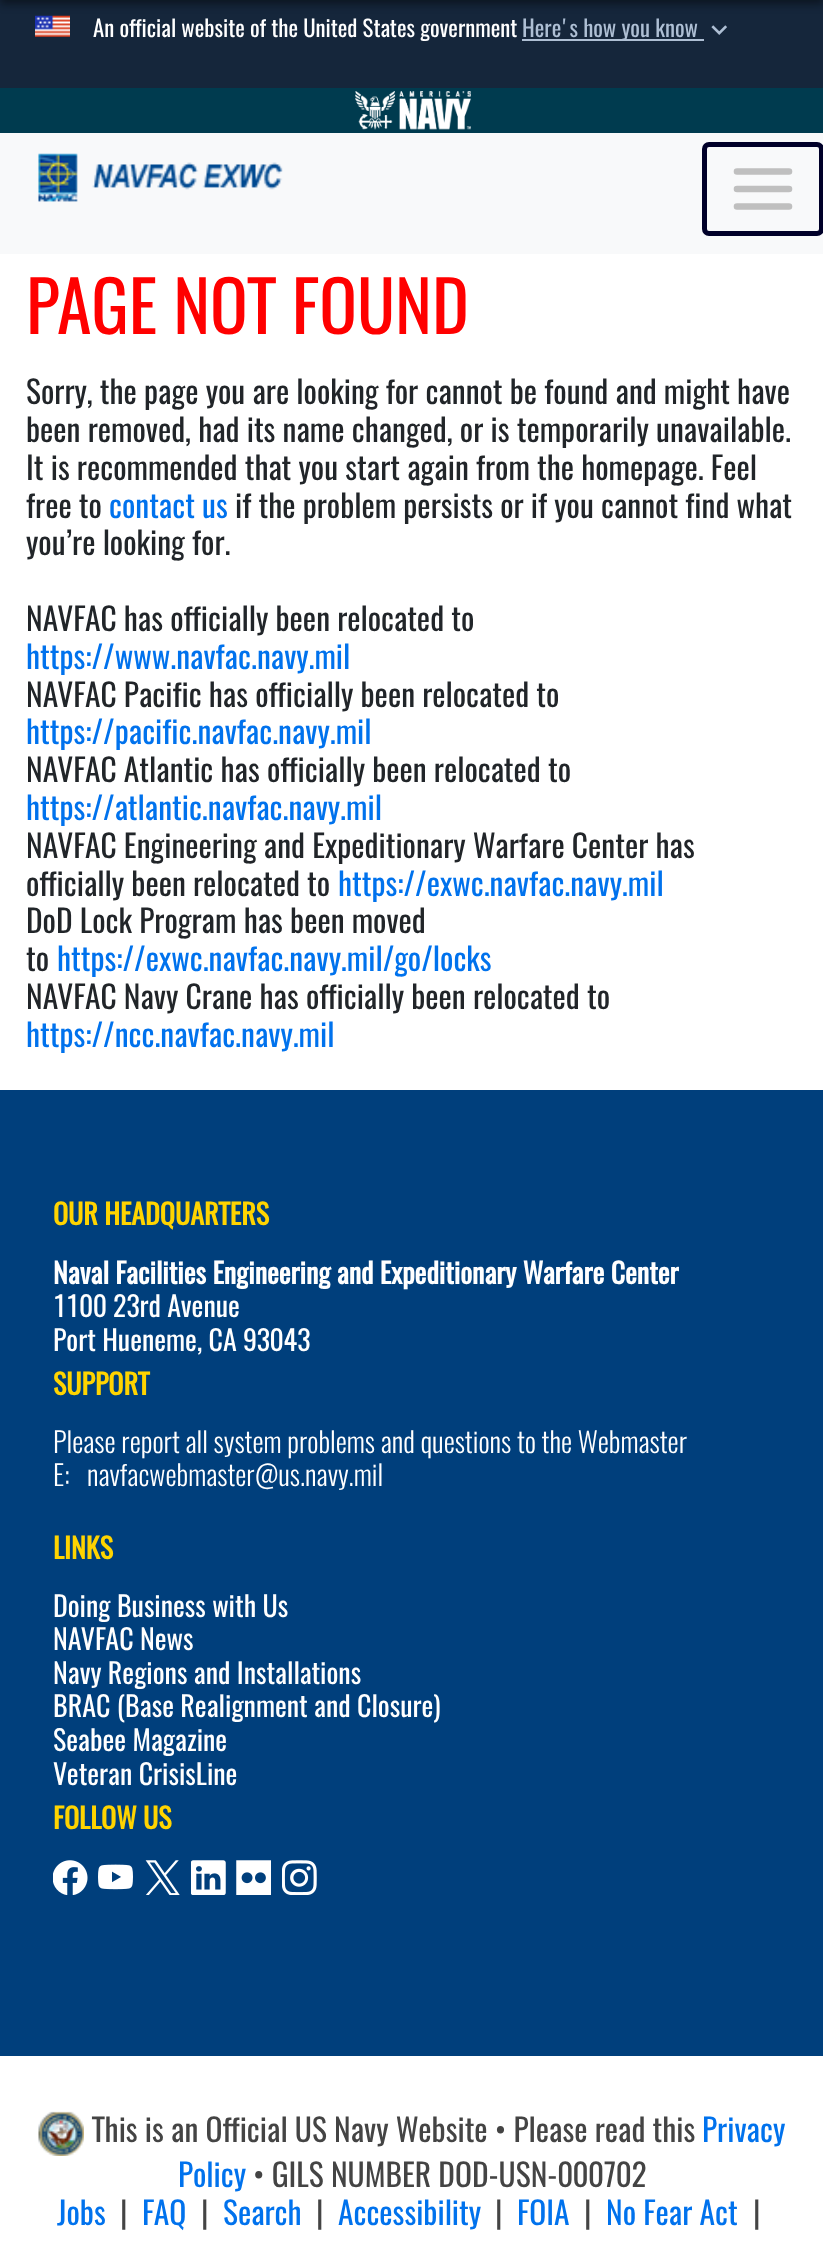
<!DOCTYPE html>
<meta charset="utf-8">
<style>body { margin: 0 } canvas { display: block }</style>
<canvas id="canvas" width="823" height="2251"></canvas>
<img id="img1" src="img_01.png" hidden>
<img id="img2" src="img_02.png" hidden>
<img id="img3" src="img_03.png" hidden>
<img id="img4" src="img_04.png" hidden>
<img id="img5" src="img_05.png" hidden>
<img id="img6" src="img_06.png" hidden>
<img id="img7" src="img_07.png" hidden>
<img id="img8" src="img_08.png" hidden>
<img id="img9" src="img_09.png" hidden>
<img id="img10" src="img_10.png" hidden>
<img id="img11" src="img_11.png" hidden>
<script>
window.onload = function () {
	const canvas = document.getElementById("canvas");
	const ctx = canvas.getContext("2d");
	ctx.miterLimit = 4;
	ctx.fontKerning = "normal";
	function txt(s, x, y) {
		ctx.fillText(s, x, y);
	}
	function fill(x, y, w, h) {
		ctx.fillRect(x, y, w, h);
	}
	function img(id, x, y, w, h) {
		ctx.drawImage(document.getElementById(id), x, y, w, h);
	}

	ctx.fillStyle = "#FFFFFF";
	fill(0, 0, 823, 2251);
	ctx.fillStyle = "#15263B";
	fill(0, 0, 823, 88);
	img("img1", 35, 15, 35, 22);
	ctx.fillStyle = "#AEBFD4";
	fill(522, 39, 182, 2);
	img("img2", 711, 25, 16, 10);
	ctx.fillStyle = "rgba(2, 4, 6, 0.5)";
	ctx.filter = "blur(4.5px)";
	ctx.beginPath();
	ctx.rect(0, -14, 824, 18);
	ctx.fill();
	ctx.filter = "none";
	ctx.fillStyle = "#003B4F";
	fill(0, 88, 823, 45);
	img("img3", 355, 91, 116, 39);
	ctx.fillStyle = "#F8F9FA";
	fill(0, 133, 823, 121);
	img("img4", 38, 153, 245, 49);
	ctx.beginPath();
	ctx.roundRect(704.5, 144.5, 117, 89, 4.5);
	ctx.strokeStyle = "#000029";
	ctx.lineWidth = 5;
	ctx.stroke();
	ctx.beginPath();
	ctx.moveTo(737, 171.5);
	ctx.lineTo(789, 171.5);
	ctx.moveTo(737, 189);
	ctx.lineTo(789, 189);
	ctx.moveTo(737, 206.5);
	ctx.lineTo(789, 206.5);
	ctx.strokeStyle = "#BFBFBF";
	ctx.lineWidth = 6.6;
	ctx.lineCap = "round";
	ctx.stroke();
	ctx.fillStyle = "#003F7C";
	fill(0, 1090, 823, 966);
	img("img5", 53, 1860, 35, 35);
	img("img6", 98, 1864, 35, 26);
	img("img7", 145, 1860, 35, 35);
	img("img8", 191, 1860, 35, 35);
	img("img9", 236, 1860, 35, 35);
	img("img10", 282, 1860, 35, 35);
	img("img11", 38, 2111, 46, 45);
	ctx.font = "22.75px Oswald";
	ctx.fillStyle = "#FFFFFF";
	txt("An official website of the United States government", 93, 37);
	ctx.fillStyle = "#AEBFD4";
	txt("Here's how you know", 522, 37);
	ctx.font = "70px Oswald";
	ctx.fillStyle = "#FF0000";
	txt("PAGE NOT FOUND", 26, 334);
	ctx.font = "31.5px Oswald";
	ctx.fillStyle = "#212529";
	txt("Sorry, the page you are looking for cannot be found and might have", 26, 404);
	txt("been removed, had its name changed, or is temporarily unavailable.", 26, 442);
	txt("It is recommended that you start again from the homepage. Feel", 26, 480);
	txt("free to", 26, 518);
	ctx.fillStyle = "#0072ED";
	txt("contact us", 109, 518);
	ctx.fillStyle = "#212529";
	txt("if the problem persists or if you cannot find what", 235, 518);
	txt("you’re looking for.", 26, 555);
	txt("NAVFAC has officially been relocated to", 26, 631);
	ctx.fillStyle = "#0072ED";
	txt("https://www.navfac.navy.mil", 26, 669);
	ctx.fillStyle = "#212529";
	txt("NAVFAC Pacific has officially been relocated to", 26, 707);
	ctx.fillStyle = "#0072ED";
	txt("https://pacific.navfac.navy.mil", 26, 744);
	ctx.fillStyle = "#212529";
	txt("NAVFAC Atlantic has officially been relocated to", 26, 782);
	ctx.fillStyle = "#0072ED";
	txt("https://atlantic.navfac.navy.mil", 26, 820);
	ctx.fillStyle = "#212529";
	txt("NAVFAC Engineering and Expeditionary Warfare Center has", 26, 858);
	txt("officially been relocated to", 26, 896);
	ctx.fillStyle = "#0072ED";
	txt("https://exwc.navfac.navy.mil", 338, 896);
	ctx.fillStyle = "#212529";
	txt("DoD Lock Program has been moved", 26, 933);
	txt("to", 26, 971);
	ctx.fillStyle = "#0072ED";
	txt("https://exwc.navfac.navy.mil/go/locks", 57, 971);
	ctx.fillStyle = "#212529";
	txt("NAVFAC Navy Crane has officially been relocated to", 26, 1009);
	ctx.fillStyle = "#0072ED";
	txt("https://ncc.navfac.navy.mil", 26, 1047);
	ctx.font = "bold 28px Oswald";
	ctx.fillStyle = "#FFD400";
	txt("OUR HEADQUARTERS", 53, 1225);
	ctx.fillStyle = "#FFFFFF";
	txt("Naval Facilities Engineering and Expeditionary Warfare Center", 53, 1284);
	ctx.font = "28px Oswald";
	txt("1100 23rd Avenue", 53, 1317);
	txt("Port Hueneme, CA 93043", 53, 1351);
	ctx.font = "bold 28px Oswald";
	ctx.fillStyle = "#FFD400";
	txt("SUPPORT", 53, 1395);
	ctx.font = "300 28px Oswald";
	ctx.fillStyle = "#FFFFFF";
	txt("Please report all system problems and questions to the Webmaster", 53, 1453);
	txt("E:", 53, 1486);
	txt("navfacwebmaster@us.navy.mil", 87, 1486);
	ctx.font = "bold 28px Oswald";
	ctx.fillStyle = "#FFD400";
	txt("LINKS", 53, 1559);
	ctx.font = "28px Oswald";
	ctx.fillStyle = "#FFFFFF";
	txt("Doing Business with Us", 53, 1617);
	txt("NAVFAC News", 53, 1650);
	txt("Navy Regions and Installations", 53, 1684);
	txt("BRAC (Base Realignment and Closure)", 53, 1717);
	txt("Seabee Magazine", 53, 1751);
	txt("Veteran CrisisLine", 53, 1785);
	ctx.font = "bold 28px Oswald";
	ctx.fillStyle = "#FFD400";
	txt("FOLLOW US", 53, 1829);
	ctx.font = "31.5px Oswald";
	ctx.fillStyle = "#444444";
	txt("This is an Official US Navy Website • Please read this", 92, 2142);
	ctx.fillStyle = "#0072ED";
	txt("Privacy", 702, 2142);
	txt("Policy", 178, 2187);
	ctx.fillStyle = "#444444";
	txt("• GILS NUMBER DOD-USN-000702", 253, 2187);
	ctx.fillStyle = "#0072ED";
	txt("Jobs", 57, 2225);
	ctx.fillStyle = "#444444";
	txt("|", 120, 2225);
	ctx.fillStyle = "#0072ED";
	txt("FAQ", 142, 2225);
	ctx.fillStyle = "#444444";
	txt("|", 201, 2225);
	ctx.fillStyle = "#0072ED";
	txt("Search", 223, 2225);
	ctx.fillStyle = "#444444";
	txt("|", 316, 2225);
	ctx.fillStyle = "#0072ED";
	txt("Accessibility", 338, 2225);
	ctx.fillStyle = "#444444";
	txt("|", 495, 2225);
	ctx.fillStyle = "#0072ED";
	txt("FOIA", 517, 2225);
	ctx.fillStyle = "#444444";
	txt("|", 584, 2225);
	ctx.fillStyle = "#0072ED";
	txt("No Fear Act", 606, 2225);
	ctx.fillStyle = "#444444";
	txt("|", 753, 2225);
};
</script>
